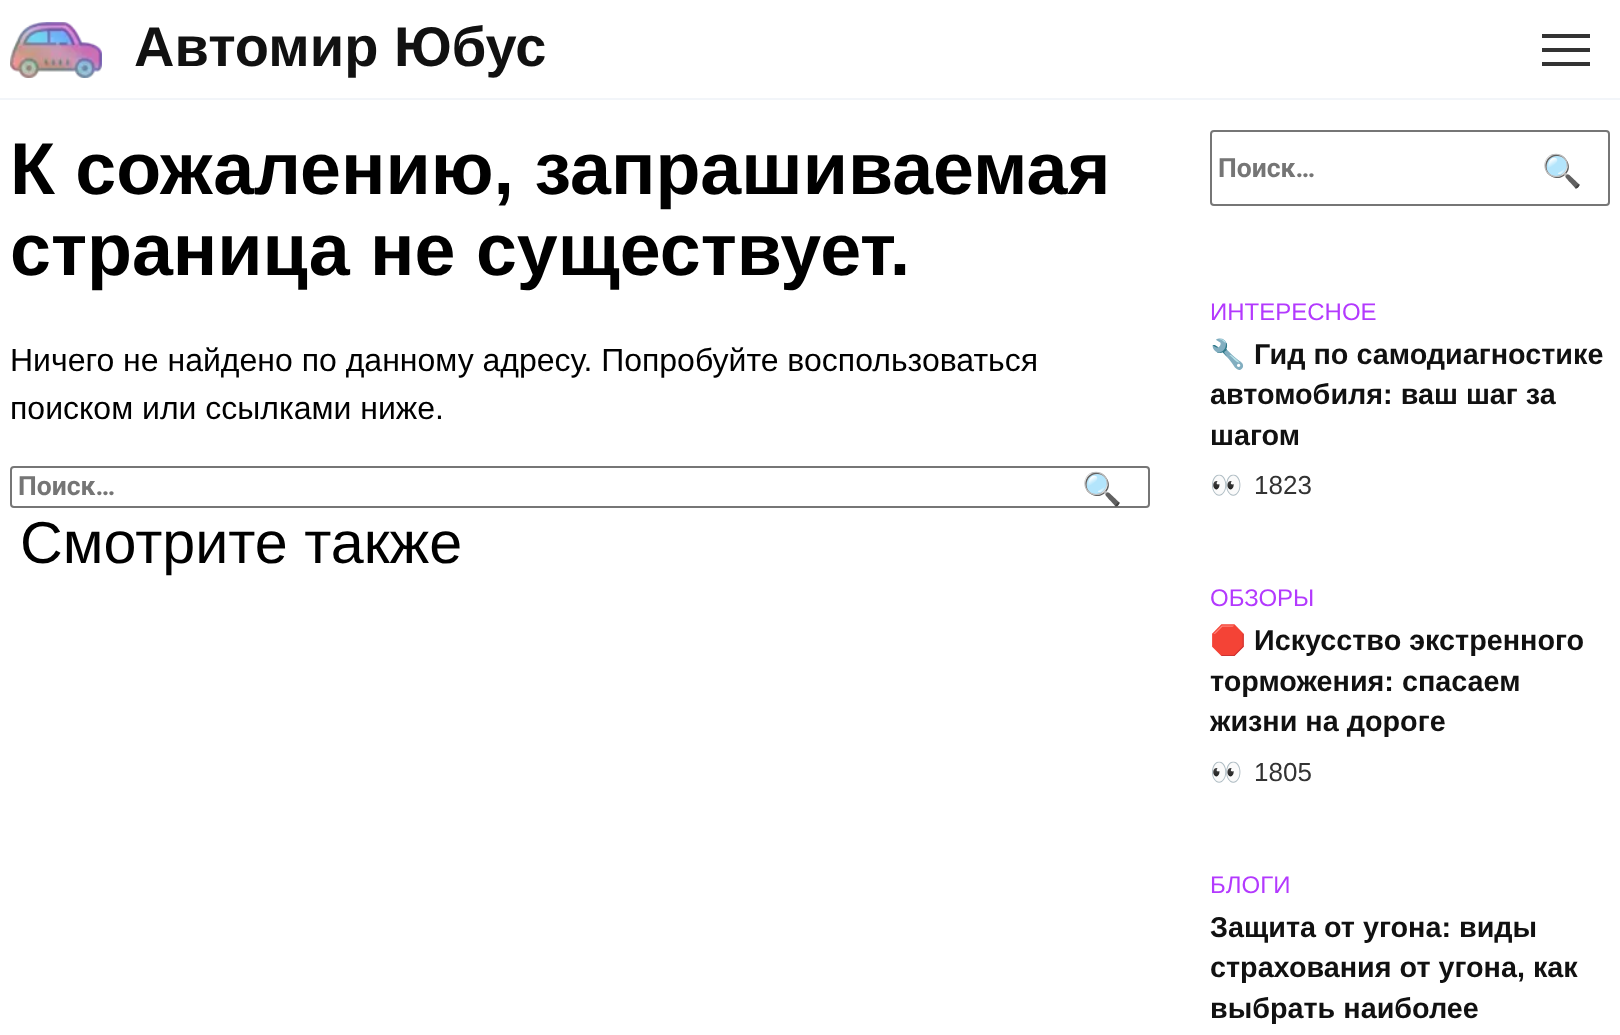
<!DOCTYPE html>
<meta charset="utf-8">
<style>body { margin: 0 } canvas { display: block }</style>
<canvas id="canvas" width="1620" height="1035"></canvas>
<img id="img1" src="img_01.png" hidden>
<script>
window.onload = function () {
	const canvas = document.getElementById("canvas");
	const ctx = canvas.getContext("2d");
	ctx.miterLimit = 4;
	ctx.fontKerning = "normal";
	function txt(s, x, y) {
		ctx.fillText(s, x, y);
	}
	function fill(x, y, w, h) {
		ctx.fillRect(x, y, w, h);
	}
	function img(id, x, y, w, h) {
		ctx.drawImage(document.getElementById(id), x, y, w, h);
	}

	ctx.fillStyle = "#FFFFFF";
	fill(0, 0, 1620, 1035);
	ctx.fillStyle = "#F2F5F9";
	fill(0, 98, 1620, 2);
	img("img1", 10, 22, 92, 56);
	ctx.fillStyle = "#333333";
	fill(1542, 34, 48, 4);
	fill(1542, 48, 48, 4);
	fill(1542, 62, 48, 4);
	ctx.beginPath();
	ctx.roundRect(11, 467, 1138, 40, 3);
	ctx.strokeStyle = "#767676";
	ctx.lineWidth = 2;
	ctx.stroke();
	ctx.beginPath();
	ctx.roundRect(1211, 131, 398, 74, 3);
	ctx.stroke();
	ctx.font = "bold 56px Liberation Sans";
	ctx.fillStyle = "#111111";
	txt("Автомир Юбус", 134, 66);
	ctx.font = "bold 73.6px Liberation Sans";
	ctx.fillStyle = "#000000";
	txt("К сожалению, запрашиваемая", 10, 194);
	txt("страница не существует.", 10, 275);
	ctx.font = "32px Liberation Sans";
	txt("Ничего не найдено по данному адресу. Попробуйте воспользоваться", 10, 371);
	txt("поиском или ссылками ниже.", 10, 419);
	ctx.font = "bold 26.5px Roboto";
	ctx.fillStyle = "#757575";
	txt("Поиск…", 18, 495);
	ctx.font = "32px Noto Color Emoji";
	ctx.fillStyle = "#000000";
	txt("🔍", 1082, 500);
	ctx.font = "59.25px Liberation Sans";
	txt("Смотрите также", 20, 563);
	ctx.font = "bold 26.5px Roboto";
	ctx.fillStyle = "#757575";
	txt("Поиск…", 1218, 177);
	ctx.font = "32px Noto Color Emoji";
	ctx.fillStyle = "#000000";
	txt("🔍", 1542, 182);
	ctx.font = "24px Liberation Sans";
	ctx.fillStyle = "#B339FE";
	txt("ИНТЕРЕСНОЕ", 1210, 320);
	ctx.font = "bold 28.75px Noto Color Emoji";
	ctx.fillStyle = "#111111";
	txt("🔧", 1210, 364);
	ctx.font = "bold 28.75px Liberation Sans";
	txt("Гид по самодиагностике", 1254, 364);
	txt("автомобиля: ваш шаг за", 1210, 404);
	txt("шагом", 1210, 445);
	ctx.font = "26px Noto Color Emoji";
	ctx.fillStyle = "#C261FE";
	txt("👀", 1210, 494);
	ctx.font = "26px Liberation Sans";
	ctx.fillStyle = "#333333";
	txt("1823", 1254, 494);
	ctx.font = "24px Liberation Sans";
	ctx.fillStyle = "#B339FE";
	txt("ОБЗОРЫ", 1210, 606);
	ctx.font = "bold 28.75px Noto Color Emoji";
	ctx.fillStyle = "#111111";
	txt("🛑", 1210, 650);
	ctx.font = "bold 28.75px Liberation Sans";
	txt("Искусство экстренного", 1254, 650);
	txt("торможения: спасаем", 1210, 691);
	txt("жизни на дороге", 1210, 731);
	ctx.font = "26px Noto Color Emoji";
	ctx.fillStyle = "#C261FE";
	txt("👀", 1210, 781);
	ctx.font = "26px Liberation Sans";
	ctx.fillStyle = "#333333";
	txt("1805", 1254, 781);
	ctx.font = "24px Liberation Sans";
	ctx.fillStyle = "#B339FE";
	txt("БЛОГИ", 1210, 893);
	ctx.font = "bold 28.75px Liberation Sans";
	ctx.fillStyle = "#111111";
	txt("Защита от угона: виды", 1210, 937);
	txt("страхования от угона, как", 1210, 977);
	txt("выбрать наиболее", 1210, 1018);
};
</script>
